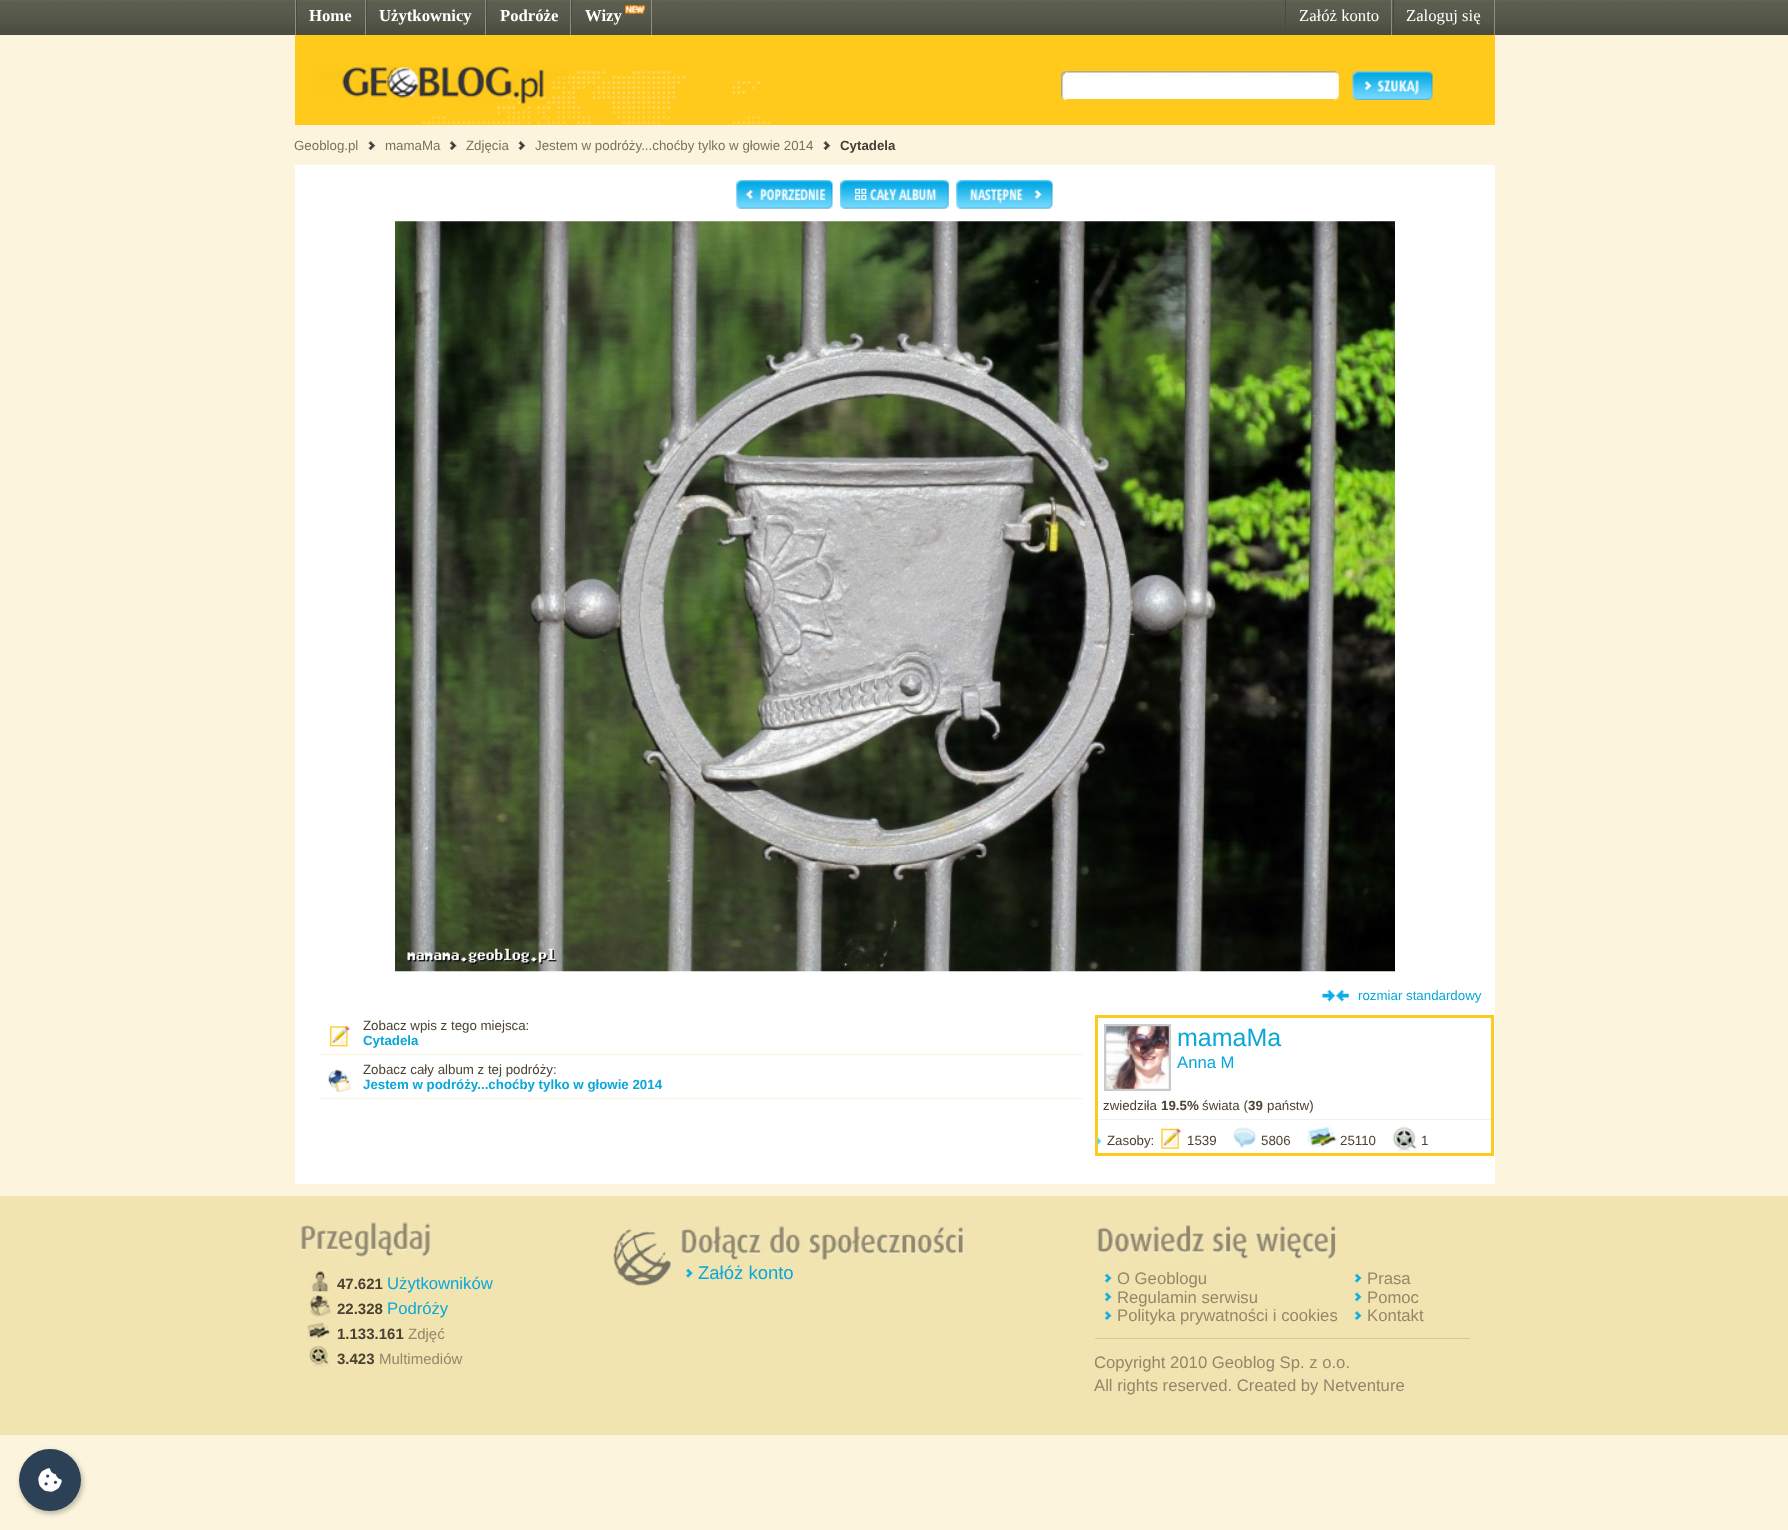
<!DOCTYPE html>
<meta charset="utf-8">
<style>body { margin: 0 } canvas { display: block }</style>
<canvas id="canvas" width="1788" height="1530"></canvas>
<img id="img1" src="img_01.png" hidden>
<img id="img2" src="img_02.png" hidden>
<img id="img3" src="img_03.png" hidden>
<img id="img4" src="img_04.png" hidden>
<img id="img5" src="img_05.png" hidden>
<img id="img6" src="img_06.png" hidden>
<img id="img7" src="img_07.png" hidden>
<img id="img8" src="img_08.png" hidden>
<img id="img9" src="img_09.png" hidden>
<img id="img10" src="img_10.png" hidden>
<img id="img11" src="img_11.png" hidden>
<img id="img12" src="img_12.png" hidden>
<img id="img13" src="img_13.png" hidden>
<img id="img14" src="img_14.png" hidden>
<img id="img15" src="img_15.png" hidden>
<img id="img16" src="img_16.png" hidden>
<img id="img17" src="img_17.png" hidden>
<img id="img18" src="img_18.png" hidden>
<img id="img19" src="img_19.png" hidden>
<img id="img20" src="img_20.png" hidden>
<img id="img21" src="img_21.png" hidden>
<img id="img22" src="img_22.png" hidden>
<img id="img23" src="img_23.png" hidden>
<img id="img24" src="img_24.png" hidden>
<img id="img25" src="img_25.png" hidden>
<img id="img26" src="img_26.png" hidden>
<img id="img27" src="img_27.png" hidden>
<img id="img28" src="img_28.png" hidden>
<img id="img29" src="img_29.png" hidden>
<img id="img30" src="img_30.png" hidden>
<img id="img31" src="img_31.png" hidden>
<img id="img32" src="img_32.png" hidden>
<img id="img33" src="img_33.png" hidden>
<img id="img34" src="img_34.png" hidden>
<img id="img35" src="img_35.png" hidden>
<script>
window.onload = function () {
	const canvas = document.getElementById("canvas");
	const ctx = canvas.getContext("2d");
	ctx.miterLimit = 4;
	ctx.fontKerning = "normal";
	function txt(s, x, y) {
		ctx.fillText(s, x, y);
	}
	function fill(x, y, w, h) {
		ctx.fillRect(x, y, w, h);
	}
	function img(id, x, y, w, h) {
		ctx.drawImage(document.getElementById(id), x, y, w, h);
	}

	ctx.fillStyle = "#FCF4DD";
	fill(0, 0, 1788, 1530);
	img("img1", 0, 0, 1788, 35);
	ctx.fillStyle = "#8C8D83";
	fill(295, 0, 1, 35);
	fill(365, 0, 1, 35);
	ctx.fillStyle = "#494A41";
	fill(296, 0, 1, 35);
	ctx.fillStyle = "#8C8D83";
	fill(485, 0, 1, 35);
	ctx.fillStyle = "#494A41";
	fill(366, 0, 1, 35);
	ctx.fillStyle = "#8C8D83";
	fill(570, 0, 1, 35);
	ctx.fillStyle = "#494A41";
	fill(486, 0, 1, 35);
	ctx.fillStyle = "#8C8D83";
	fill(651, 0, 1, 35);
	ctx.fillStyle = "#494A41";
	fill(571, 0, 1, 35);
	img("img2", 625, 4, 20, 10);
	ctx.fillStyle = "#8C8D83";
	fill(1391, 0, 1, 35);
	ctx.fillStyle = "#494A41";
	fill(1285, 0, 1, 35);
	ctx.fillStyle = "#8C8D83";
	fill(1494, 0, 1, 35);
	ctx.fillStyle = "#494A41";
	fill(1393, 0, 1, 35);
	ctx.fillStyle = "#FFCA1C";
	fill(295, 35, 1200, 90);
	img("img3", 295, 65, 475, 60);
	img("img4", 1061, 70, 6, 31);
	ctx.fillStyle = "#FFFFFF";
	fill(1066, 70, 269, 29);
	img("img5", 1066, 70, 269, 6);
	img("img6", 1335, 70, 5, 31);
	img("img7", 1352, 71, 81, 29);
	img("img8", 368, 141, 8, 9);
	img("img9", 449, 141, 8, 9);
	img("img8", 518, 141, 8, 9);
	img("img8", 823, 141, 8, 9);
	fill(295, 165, 1200, 1019);
	img("img10", 736, 180, 97, 29);
	img("img11", 840, 180, 109, 29);
	img("img12", 956, 180, 97, 29);
	img("img13", 395, 221, 1000, 751);
	img("img14", 1322, 989, 27, 13);
	ctx.fillStyle = "#FAF5DF";
	fill(320, 1054, 763, 1);
	img("img15", 329, 1026, 22, 21);
	fill(320, 1098, 763, 1);
	img("img16", 328, 1069, 24, 24);
	ctx.strokeStyle = "#FFCA1C";
	ctx.lineWidth = 3;
	ctx.strokeRect(1096.5, 1016.5, 396, 138);
	ctx.fillStyle = "#F0F0F0";
	fill(1098, 1119, 393, 1);
	ctx.strokeStyle = "#CACACA";
	ctx.strokeRect(1105.5, 1025.5, 64, 64);
	img("img17", 1106, 1026, 63, 63);
	img("img18", 1097, 1137, 5, 8);
	img("img19", 1161, 1128, 21, 21);
	img("img20", 1233, 1127, 23, 21);
	img("img21", 1307, 1126, 30, 21);
	img("img22", 1392, 1126, 25, 26);
	ctx.fillStyle = "#F2E4B1";
	fill(0, 1196, 1788, 239);
	img("img23", 610, 1224, 65, 65);
	img("img24", 676, 1224, 293, 38);
	img("img25", 682, 1266, 11, 15);
	img("img26", 300, 1221, 131, 40);
	img("img27", 309, 1271, 20, 21);
	img("img28", 309, 1295, 22, 22);
	img("img29", 307, 1322, 24, 18);
	img("img30", 308, 1345, 21, 22);
	img("img31", 1097, 1224, 240, 38);
	ctx.fillStyle = "#D7C99A";
	fill(1095, 1338, 375, 1);
	img("img32", 1101, 1271, 11, 15);
	img("img33", 1101, 1290, 11, 15);
	img("img34", 1101, 1309, 11, 15);
	img("img32", 1351, 1271, 11, 15);
	img("img33", 1351, 1290, 11, 15);
	img("img34", 1351, 1309, 11, 15);
	ctx.fillStyle = "rgba(0, 0, 0, 0.25)";
	ctx.filter = "blur(2.5px)";
	ctx.beginPath();
	ctx.roundRect(20, 1451, 63, 63, 31.5);
	ctx.fill();
	ctx.filter = "none";
	ctx.fillStyle = "#2D4156";
	ctx.beginPath();
	ctx.arc(50, 1480, 31, 0, Math.PI * 2);
	ctx.fill();
	img("img35", 38, 1468, 24, 24);
	ctx.font = "bold 16.7px Liberation Serif";
	ctx.fillStyle = "#FFFFFF";
	txt("Home", 309, 21);
	txt("Użytkownicy", 379, 21);
	txt("Podróże", 500, 21);
	txt("Wizy", 585, 21);
	ctx.font = "16.7px Liberation Serif";
	txt("Załóż konto", 1299, 21);
	txt("Zaloguj się", 1406, 21);
	ctx.font = "13.3px Liberation Sans";
	ctx.fillStyle = "#76765C";
	txt("Geoblog.pl", 294, 150);
	txt("mamaMa", 385, 150);
	txt("Zdjęcia", 466, 150);
	txt("Jestem w podróży...choćby tylko w głowie 2014", 535, 150);
	ctx.font = "bold 13.3px Liberation Sans";
	ctx.fillStyle = "#443F39";
	txt("Cytadela", 840, 150);
	ctx.font = "13.3px Liberation Sans";
	ctx.fillStyle = "#0BA7D8";
	txt("rozmiar standardowy", 1358, 1000);
	ctx.fillStyle = "#4B4233";
	txt("Zobacz wpis z tego miejsca:", 363, 1030);
	ctx.font = "bold 13.3px Liberation Sans";
	ctx.fillStyle = "#0BA7D8";
	txt("Cytadela", 363, 1045);
	ctx.font = "13.3px Liberation Sans";
	ctx.fillStyle = "#4B4233";
	txt("Zobacz cały album z tej podróży:", 363, 1074);
	ctx.font = "bold 13.3px Liberation Sans";
	ctx.fillStyle = "#0BA7D8";
	txt("Jestem w podróży...choćby tylko w głowie 2014", 363, 1089);
	ctx.font = "25px Liberation Sans";
	txt("mamaMa", 1177, 1046);
	ctx.font = "16.7px Liberation Sans";
	txt("Anna M", 1177, 1068);
	ctx.font = "13.3px Liberation Sans";
	ctx.fillStyle = "#4B4233";
	txt("zwiedziła", 1103, 1110);
	ctx.font = "bold 13.3px Liberation Sans";
	txt("19.5%", 1161, 1110);
	ctx.font = "13.3px Liberation Sans";
	txt("świata (", 1202, 1110);
	ctx.font = "bold 13.3px Liberation Sans";
	txt("39", 1248, 1110);
	ctx.font = "13.3px Liberation Sans";
	txt("państw)", 1267, 1110);
	txt("Zasoby:", 1107, 1145);
	txt("1539", 1187, 1145);
	txt("5806", 1261, 1145);
	txt("25110", 1340, 1145);
	txt("1", 1421, 1145);
	ctx.font = "18.5px Liberation Sans";
	ctx.fillStyle = "#0BA7D8";
	txt("Załóż konto", 698, 1279);
	ctx.font = "bold 15px Liberation Sans";
	ctx.fillStyle = "#4B4233";
	txt("47.621", 337, 1289);
	ctx.font = "16.7px Liberation Sans";
	ctx.fillStyle = "#0BA7D8";
	txt("Użytkowników", 387, 1289);
	ctx.font = "bold 15px Liberation Sans";
	ctx.fillStyle = "#4B4233";
	txt("22.328", 337, 1314);
	ctx.font = "16.7px Liberation Sans";
	ctx.fillStyle = "#0BA7D8";
	txt("Podróży", 387, 1314);
	ctx.font = "bold 15px Liberation Sans";
	ctx.fillStyle = "#4B4233";
	txt("1.133.161", 337, 1339);
	ctx.font = "15px Liberation Sans";
	ctx.fillStyle = "#92886A";
	txt("Zdjęć", 408, 1339);
	ctx.font = "bold 15px Liberation Sans";
	ctx.fillStyle = "#4B4233";
	txt("3.423", 337, 1364);
	ctx.font = "15px Liberation Sans";
	ctx.fillStyle = "#92886A";
	txt("Multimediów", 379, 1364);
	ctx.font = "16.7px Liberation Sans";
	txt("O Geoblogu", 1117, 1284);
	txt("Regulamin serwisu", 1117, 1303);
	txt("Polityka prywatności i cookies", 1117, 1321);
	txt("Prasa", 1367, 1284);
	txt("Pomoc", 1367, 1303);
	txt("Kontakt", 1367, 1321);
	txt("Copyright 2010 Geoblog Sp. z o.o.", 1094, 1368);
	txt("All rights reserved. Created by Netventure", 1094, 1391);
};
</script>
